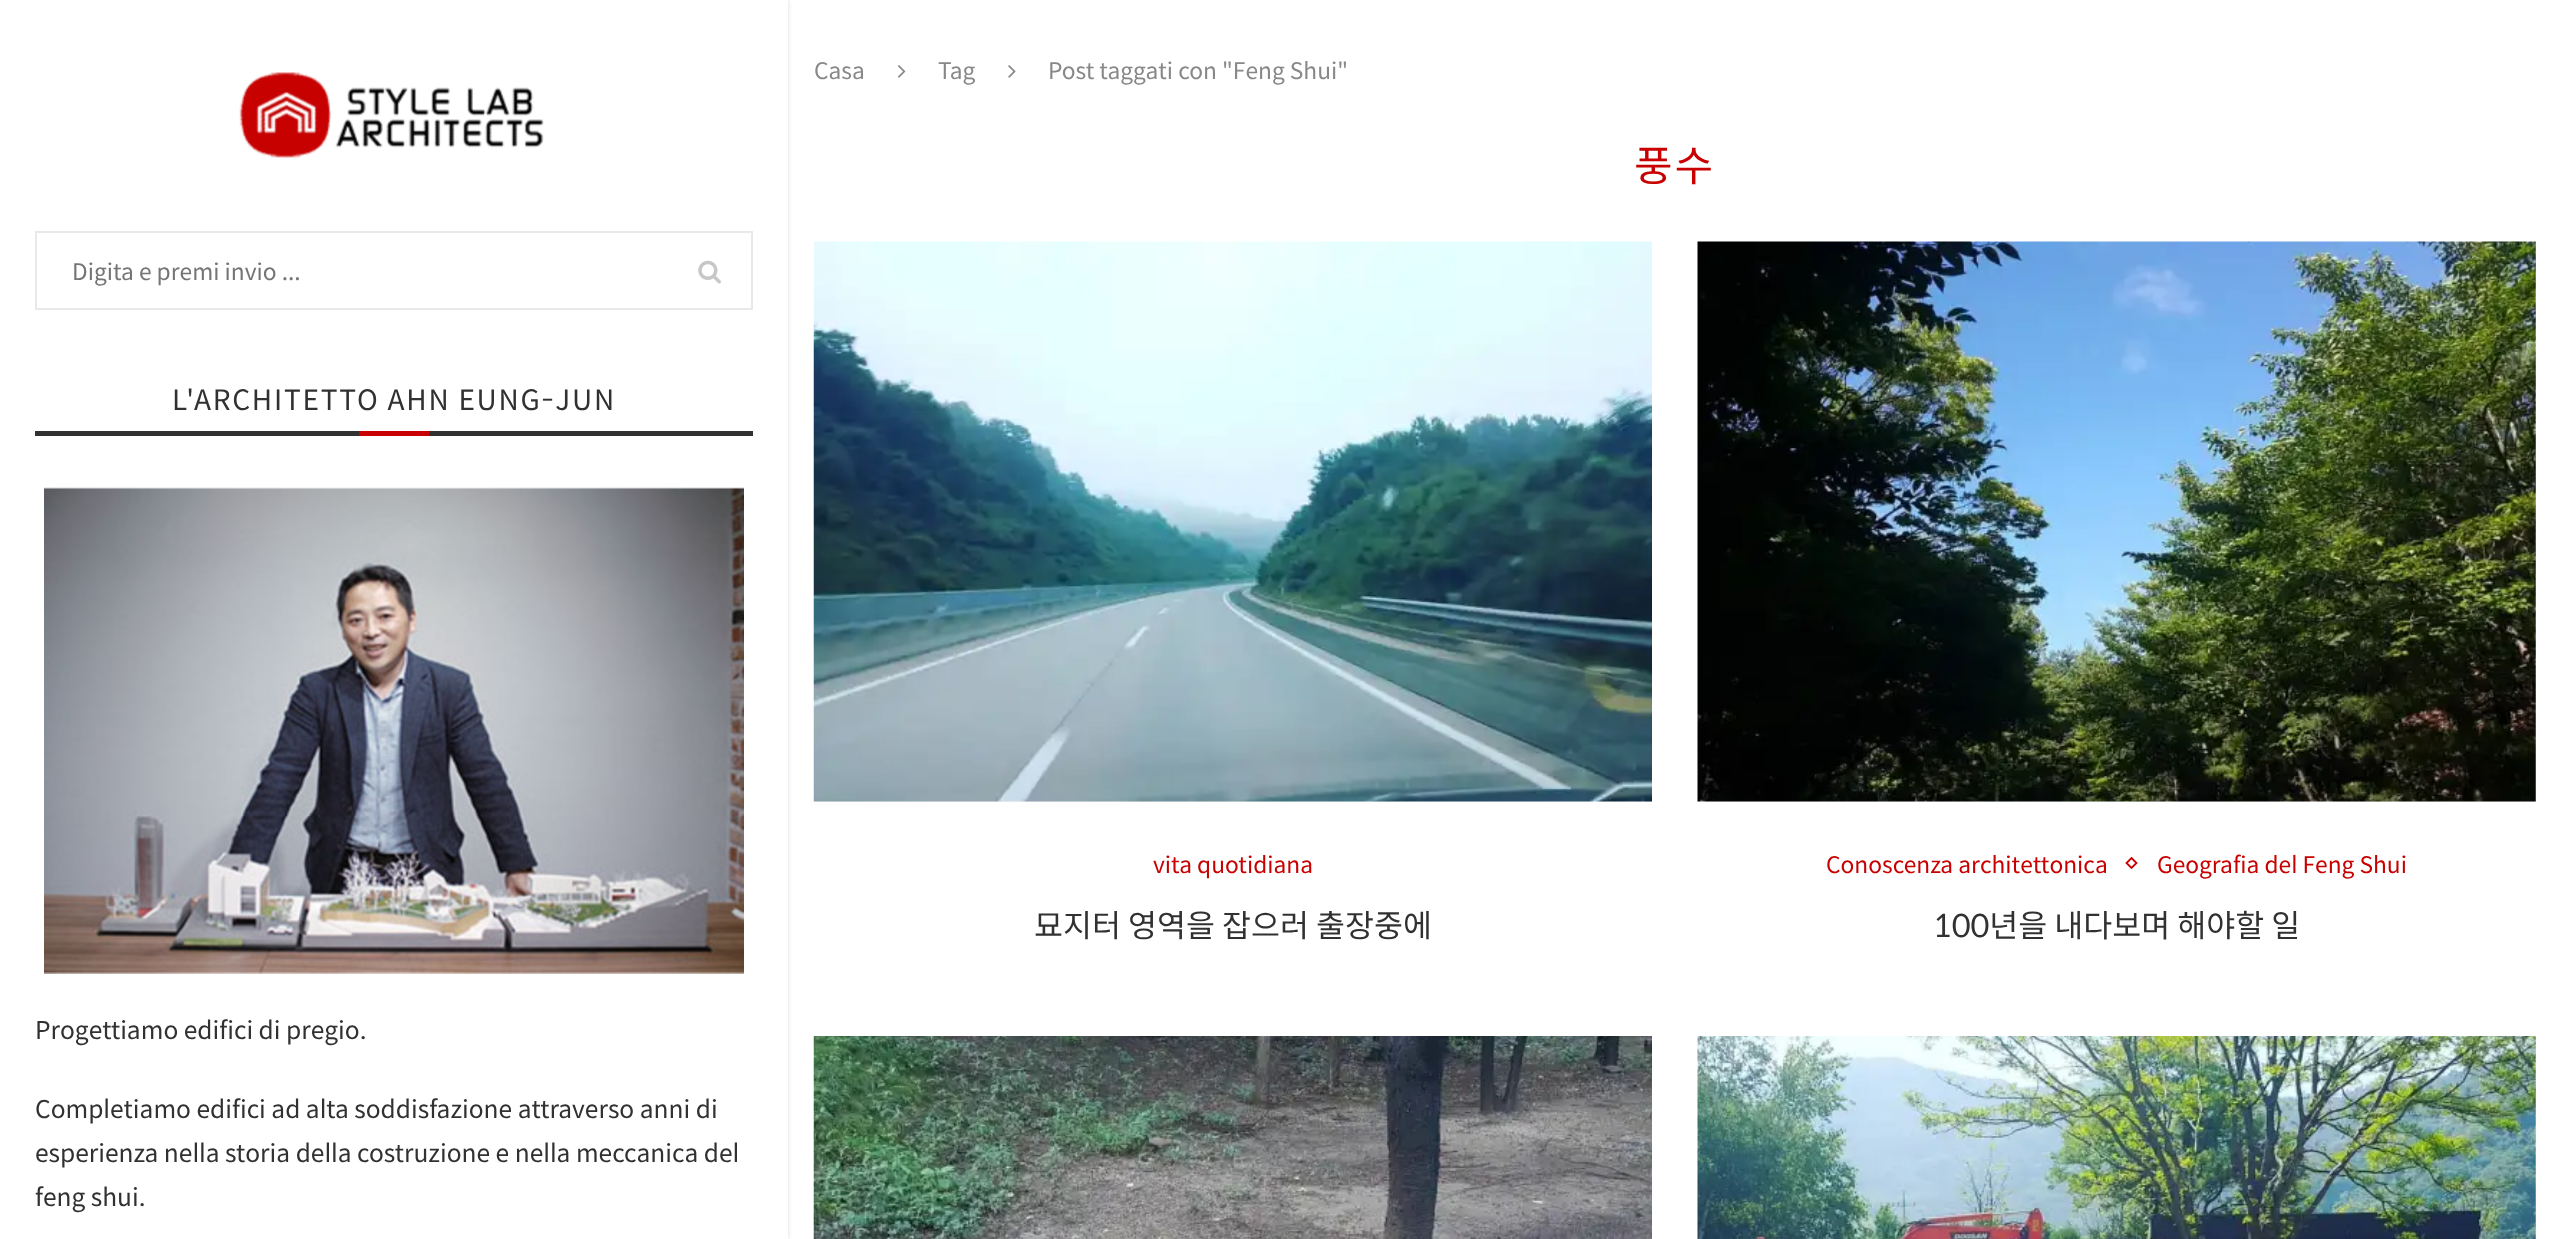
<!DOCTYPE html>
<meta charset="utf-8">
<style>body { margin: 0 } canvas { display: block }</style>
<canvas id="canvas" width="2561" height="1239"></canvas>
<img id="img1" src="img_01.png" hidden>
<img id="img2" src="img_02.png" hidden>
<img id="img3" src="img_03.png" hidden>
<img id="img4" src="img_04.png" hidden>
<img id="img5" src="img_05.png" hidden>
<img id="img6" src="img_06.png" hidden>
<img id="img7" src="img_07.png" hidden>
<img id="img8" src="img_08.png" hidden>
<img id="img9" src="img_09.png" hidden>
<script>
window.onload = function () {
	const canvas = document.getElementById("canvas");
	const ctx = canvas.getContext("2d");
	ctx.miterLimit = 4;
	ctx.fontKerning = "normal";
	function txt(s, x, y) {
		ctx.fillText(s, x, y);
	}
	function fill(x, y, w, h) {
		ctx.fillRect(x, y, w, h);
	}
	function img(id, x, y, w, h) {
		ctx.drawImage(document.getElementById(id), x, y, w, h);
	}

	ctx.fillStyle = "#FFFFFF";
	fill(0, 0, 2561, 1239);
	ctx.fillStyle = "rgba(0, 0, 0, 0.15)";
	ctx.filter = "blur(2px)";
	ctx.beginPath();
	ctx.rect(0, 0, 788, 1239);
	ctx.fill();
	ctx.filter = "none";
	ctx.fillStyle = "#FFFFFF";
	fill(0, 0, 788, 1239);
	img("img1", 239, 72, 305, 87);
	ctx.strokeStyle = "#E9E9E9";
	ctx.lineWidth = 2;
	ctx.strokeRect(36, 232, 716, 77);
	img("img2", 698, 260, 23, 24);
	ctx.fillStyle = "#313131";
	fill(35, 431, 718, 5);
	ctx.fillStyle = "#C80000";
	fill(359, 431, 70, 5);
	img("img3", 44, 487, 700, 487);
	img("img4", 898, 65, 8, 13);
	img("img5", 1008, 65, 8, 13);
	ctx.fillStyle = "#F5F5F5";
	fill(814, 801, 838, 1);
	img("img6", 813, 241, 839, 561);
	fill(1698, 242, 838, 560);
	img("img7", 1697, 241, 839, 561);
	ctx.beginPath();
	ctx.moveTo(2131.5, 858);
	ctx.lineTo(2136.5, 863);
	ctx.lineTo(2131.5, 868);
	ctx.lineTo(2126.5, 863);
	ctx.closePath();
	ctx.strokeStyle = "#C80000";
	ctx.lineWidth = 1.8;
	ctx.stroke();
	img("img8", 813, 1036, 839, 203);
	img("img9", 1697, 1036, 839, 203);
	ctx.font = "22.75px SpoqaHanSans";
	ctx.fillStyle = "#757575";
	txt("Digita e premi invio ...", 72, 280);
	ctx.letterSpacing = "1.75px";
	ctx.font = "28px SpoqaHanSans";
	ctx.fillStyle = "#313131";
	txt("L'ARCHITETTO AHN EUNG-JUN", 172, 410);
	ctx.letterSpacing = "0px";
	ctx.font = "24.5px SpoqaHanSans";
	txt("Progettiamo edifici di pregio.", 35, 1039);
	txt("Completiamo edifici ad alta soddisfazione attraverso anni di", 35, 1118);
	txt("esperienza nella storia della costruzione e nella meccanica del", 35, 1162);
	txt("feng shui.", 35, 1206);
	ctx.font = "22.75px SpoqaHanSans";
	ctx.fillStyle = "#888888";
	txt("Casa", 814, 79);
	txt("Tag", 938, 79);
	txt("Post taggati con \"Feng Shui\"", 1048, 79);
	ctx.letterSpacing = "1.75px";
	ctx.font = "42px SpoqaHanSans";
	ctx.fillStyle = "#C80000";
	txt("풍수", 1634, 181);
	ctx.letterSpacing = "0px";
	ctx.font = "22.75px SpoqaHanSans";
	txt("vita quotidiana", 1153, 873);
	ctx.font = "31.5px SpoqaHanSans";
	ctx.fillStyle = "#313131";
	txt("묘지터 영역을 잡으러 출장중에", 1034, 937);
	ctx.font = "22.75px SpoqaHanSans";
	ctx.fillStyle = "#C80000";
	txt("Conoscenza architettonica", 1826, 873);
	txt("Geografia del Feng Shui", 2157, 873);
	ctx.font = "31.5px SpoqaHanSans";
	ctx.fillStyle = "#313131";
	txt("100년을 내다보며 해야할 일", 1933, 937);
};
</script>
